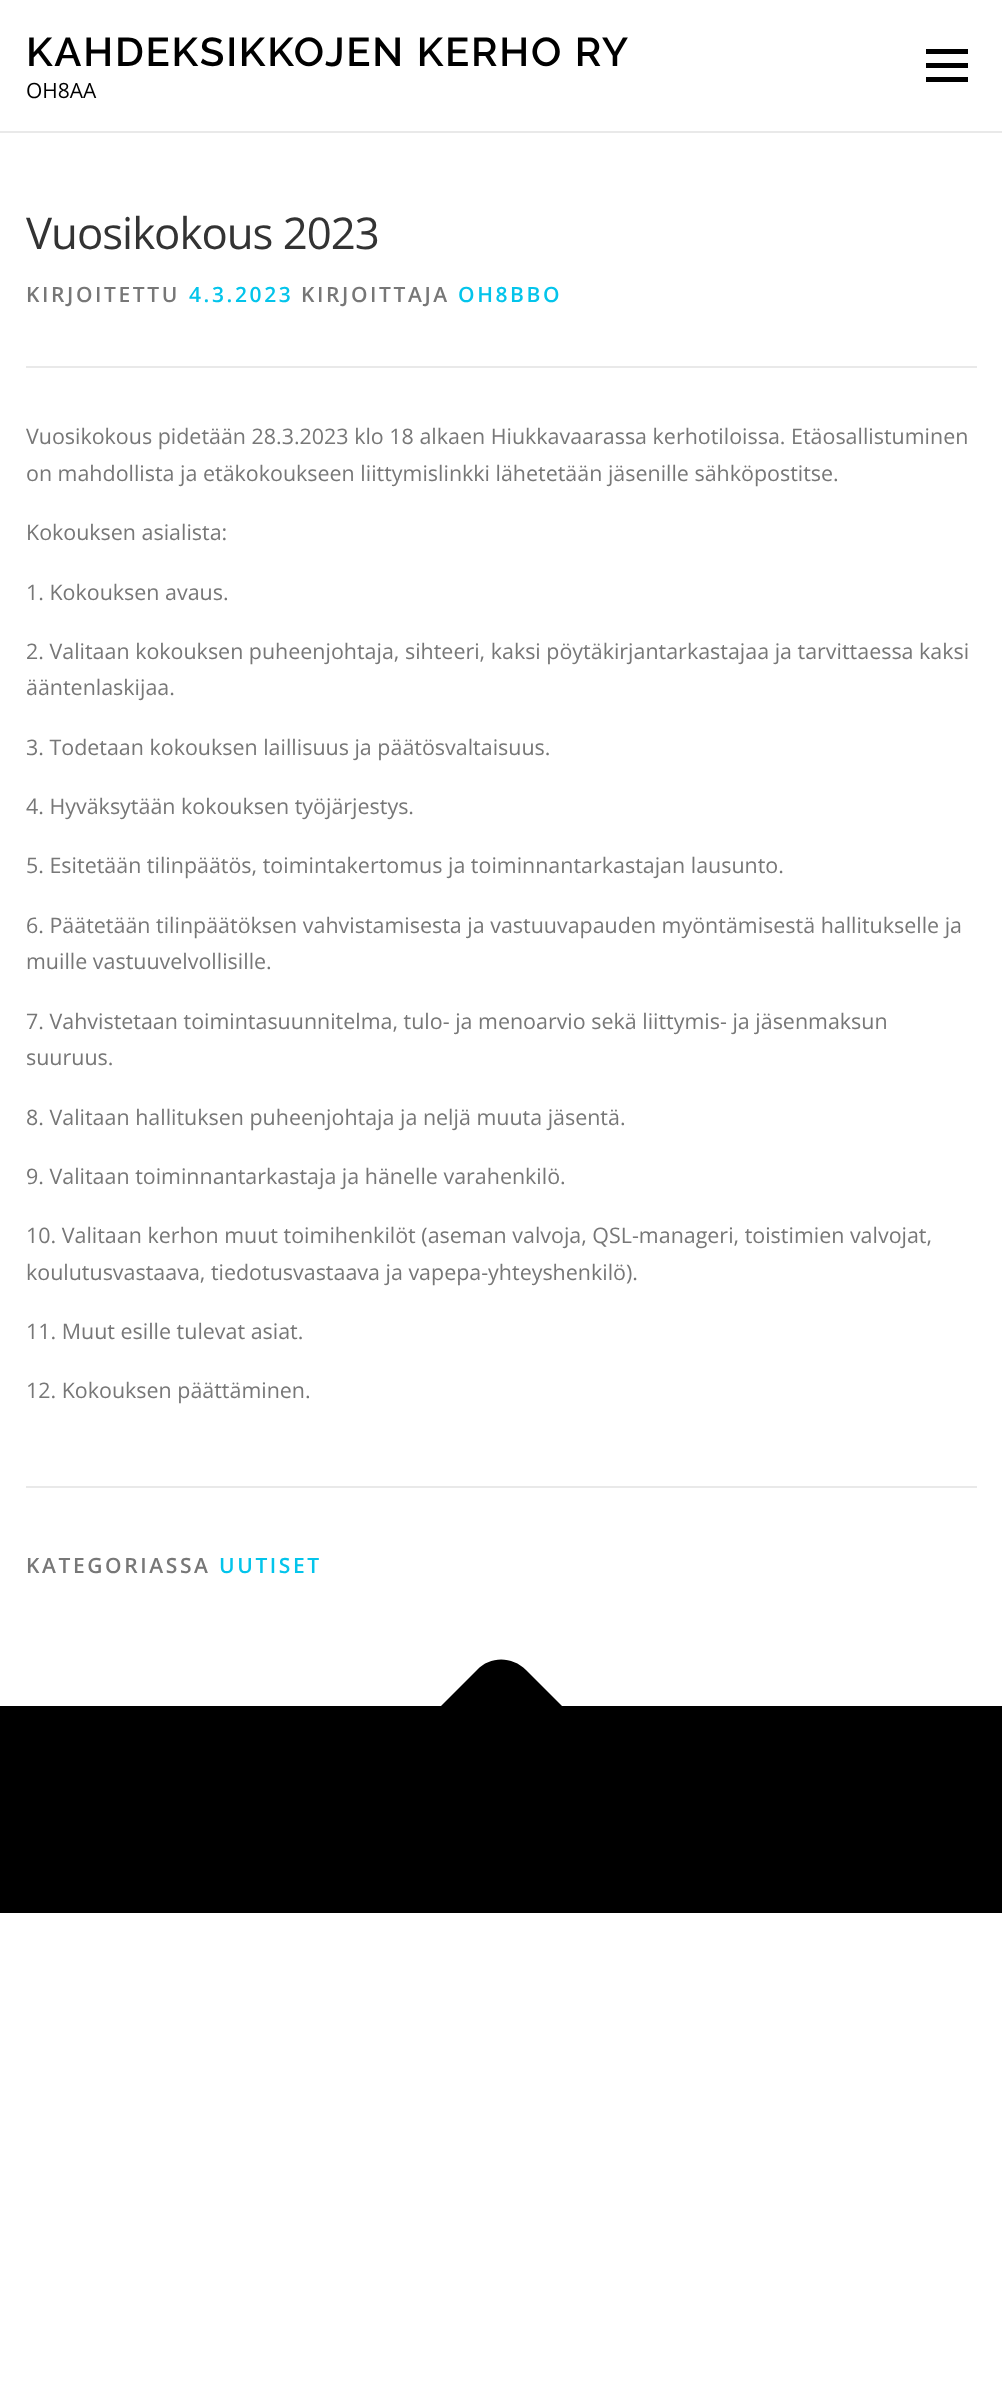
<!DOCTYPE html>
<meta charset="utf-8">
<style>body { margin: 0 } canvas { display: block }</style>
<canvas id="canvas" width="1002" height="2405"></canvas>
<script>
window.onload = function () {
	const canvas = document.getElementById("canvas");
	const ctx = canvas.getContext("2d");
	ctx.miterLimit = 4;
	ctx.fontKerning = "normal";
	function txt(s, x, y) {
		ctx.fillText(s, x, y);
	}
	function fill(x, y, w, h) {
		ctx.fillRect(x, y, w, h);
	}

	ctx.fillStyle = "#FFFFFF";
	fill(0, 0, 1002, 2405);
	ctx.fillStyle = "#000000";
	fill(926, 63, 42, 5);
	fill(926, 49, 42, 5);
	fill(926, 77, 42, 5);
	ctx.fillStyle = "#E9E9E9";
	fill(0, 131, 1002, 2);
	fill(26, 366, 951, 2);
	fill(26, 1486, 951, 2);
	ctx.fillStyle = "#000000";
	fill(0, 1706, 1002, 207);
	ctx.beginPath();
	ctx.moveTo(440, 1707);
	ctx.lineTo(477, 1670);
	ctx.bezierCurveTo(490, 1656, 512, 1656, 526, 1670);
	ctx.lineTo(563, 1707);
	ctx.lineTo(501, 1769);
	ctx.closePath();
	ctx.fill();
	ctx.letterSpacing = "1.75px";
	ctx.font = "600 40.25px Raleway";
	txt("KAHDEKSIKKOJEN KERHO RY", 26, 66);
	ctx.letterSpacing = "0px";
	ctx.font = "21px Open Sans";
	txt("OH8AA", 26, 98);
	ctx.letterSpacing = "-1px";
	ctx.font = "43.75px Open Sans";
	ctx.fillStyle = "#333333";
	txt("Vuosikokous 2023", 26, 249);
	ctx.letterSpacing = "2.6px";
	ctx.font = "600 21px Open Sans";
	ctx.fillStyle = "#777777";
	txt("KIRJOITETTU", 26, 302);
	ctx.fillStyle = "#03C4EB";
	txt("4.3.2023", 189, 302);
	ctx.fillStyle = "#777777";
	txt("KIRJOITTAJA", 301, 302);
	ctx.fillStyle = "#03C4EB";
	txt("OH8BBO", 458, 302);
	ctx.letterSpacing = "0px";
	ctx.font = "21.45px Open Sans";
	ctx.fillStyle = "#777777";
	txt("Vuosikokous pidetään 28.3.2023 klo 18 alkaen Hiukkavaarassa kerhotiloissa. Etäosallistuminen", 26, 444);
	txt("on mahdollista ja etäkokoukseen liittymislinkki lähetetään jäsenille sähköpostitse.", 26, 481);
	txt("Kokouksen asialista:", 26, 540);
	txt("1. Kokouksen avaus.", 26, 600);
	txt("2. Valitaan kokouksen puheenjohtaja, sihteeri, kaksi pöytäkirjantarkastajaa ja tarvittaessa kaksi", 26, 659);
	txt("ääntenlaskijaa.", 26, 695);
	txt("3. Todetaan kokouksen laillisuus ja päätösvaltaisuus.", 26, 755);
	txt("4. Hyväksytään kokouksen työjärjestys.", 26, 814);
	txt("5. Esitetään tilinpäätös, toimintakertomus ja toiminnantarkastajan lausunto.", 26, 873);
	txt("6. Päätetään tilinpäätöksen vahvistamisesta ja vastuuvapauden myöntämisestä hallitukselle ja", 26, 933);
	txt("muille vastuuvelvollisille.", 26, 969);
	txt("7. Vahvistetaan toimintasuunnitelma, tulo- ja menoarvio sekä liittymis- ja jäsenmaksun", 26, 1029);
	txt("suuruus.", 26, 1065);
	txt("8. Valitaan hallituksen puheenjohtaja ja neljä muuta jäsentä.", 26, 1125);
	txt("9. Valitaan toiminnantarkastaja ja hänelle varahenkilö.", 26, 1184);
	txt("10. Valitaan kerhon muut toimihenkilöt (aseman valvoja, QSL-manageri, toistimien valvojat,", 26, 1243);
	txt("koulutusvastaava, tiedotusvastaava ja vapepa-yhteyshenkilö).", 26, 1280);
	txt("11. Muut esille tulevat asiat.", 26, 1339);
	txt("12. Kokouksen päättäminen.", 26, 1398);
	ctx.letterSpacing = "2.6px";
	ctx.font = "600 21px Open Sans";
	txt("KATEGORIASSA", 26, 1573);
	ctx.fillStyle = "#03C4EB";
	txt("UUTISET", 219, 1573);
};
</script>
